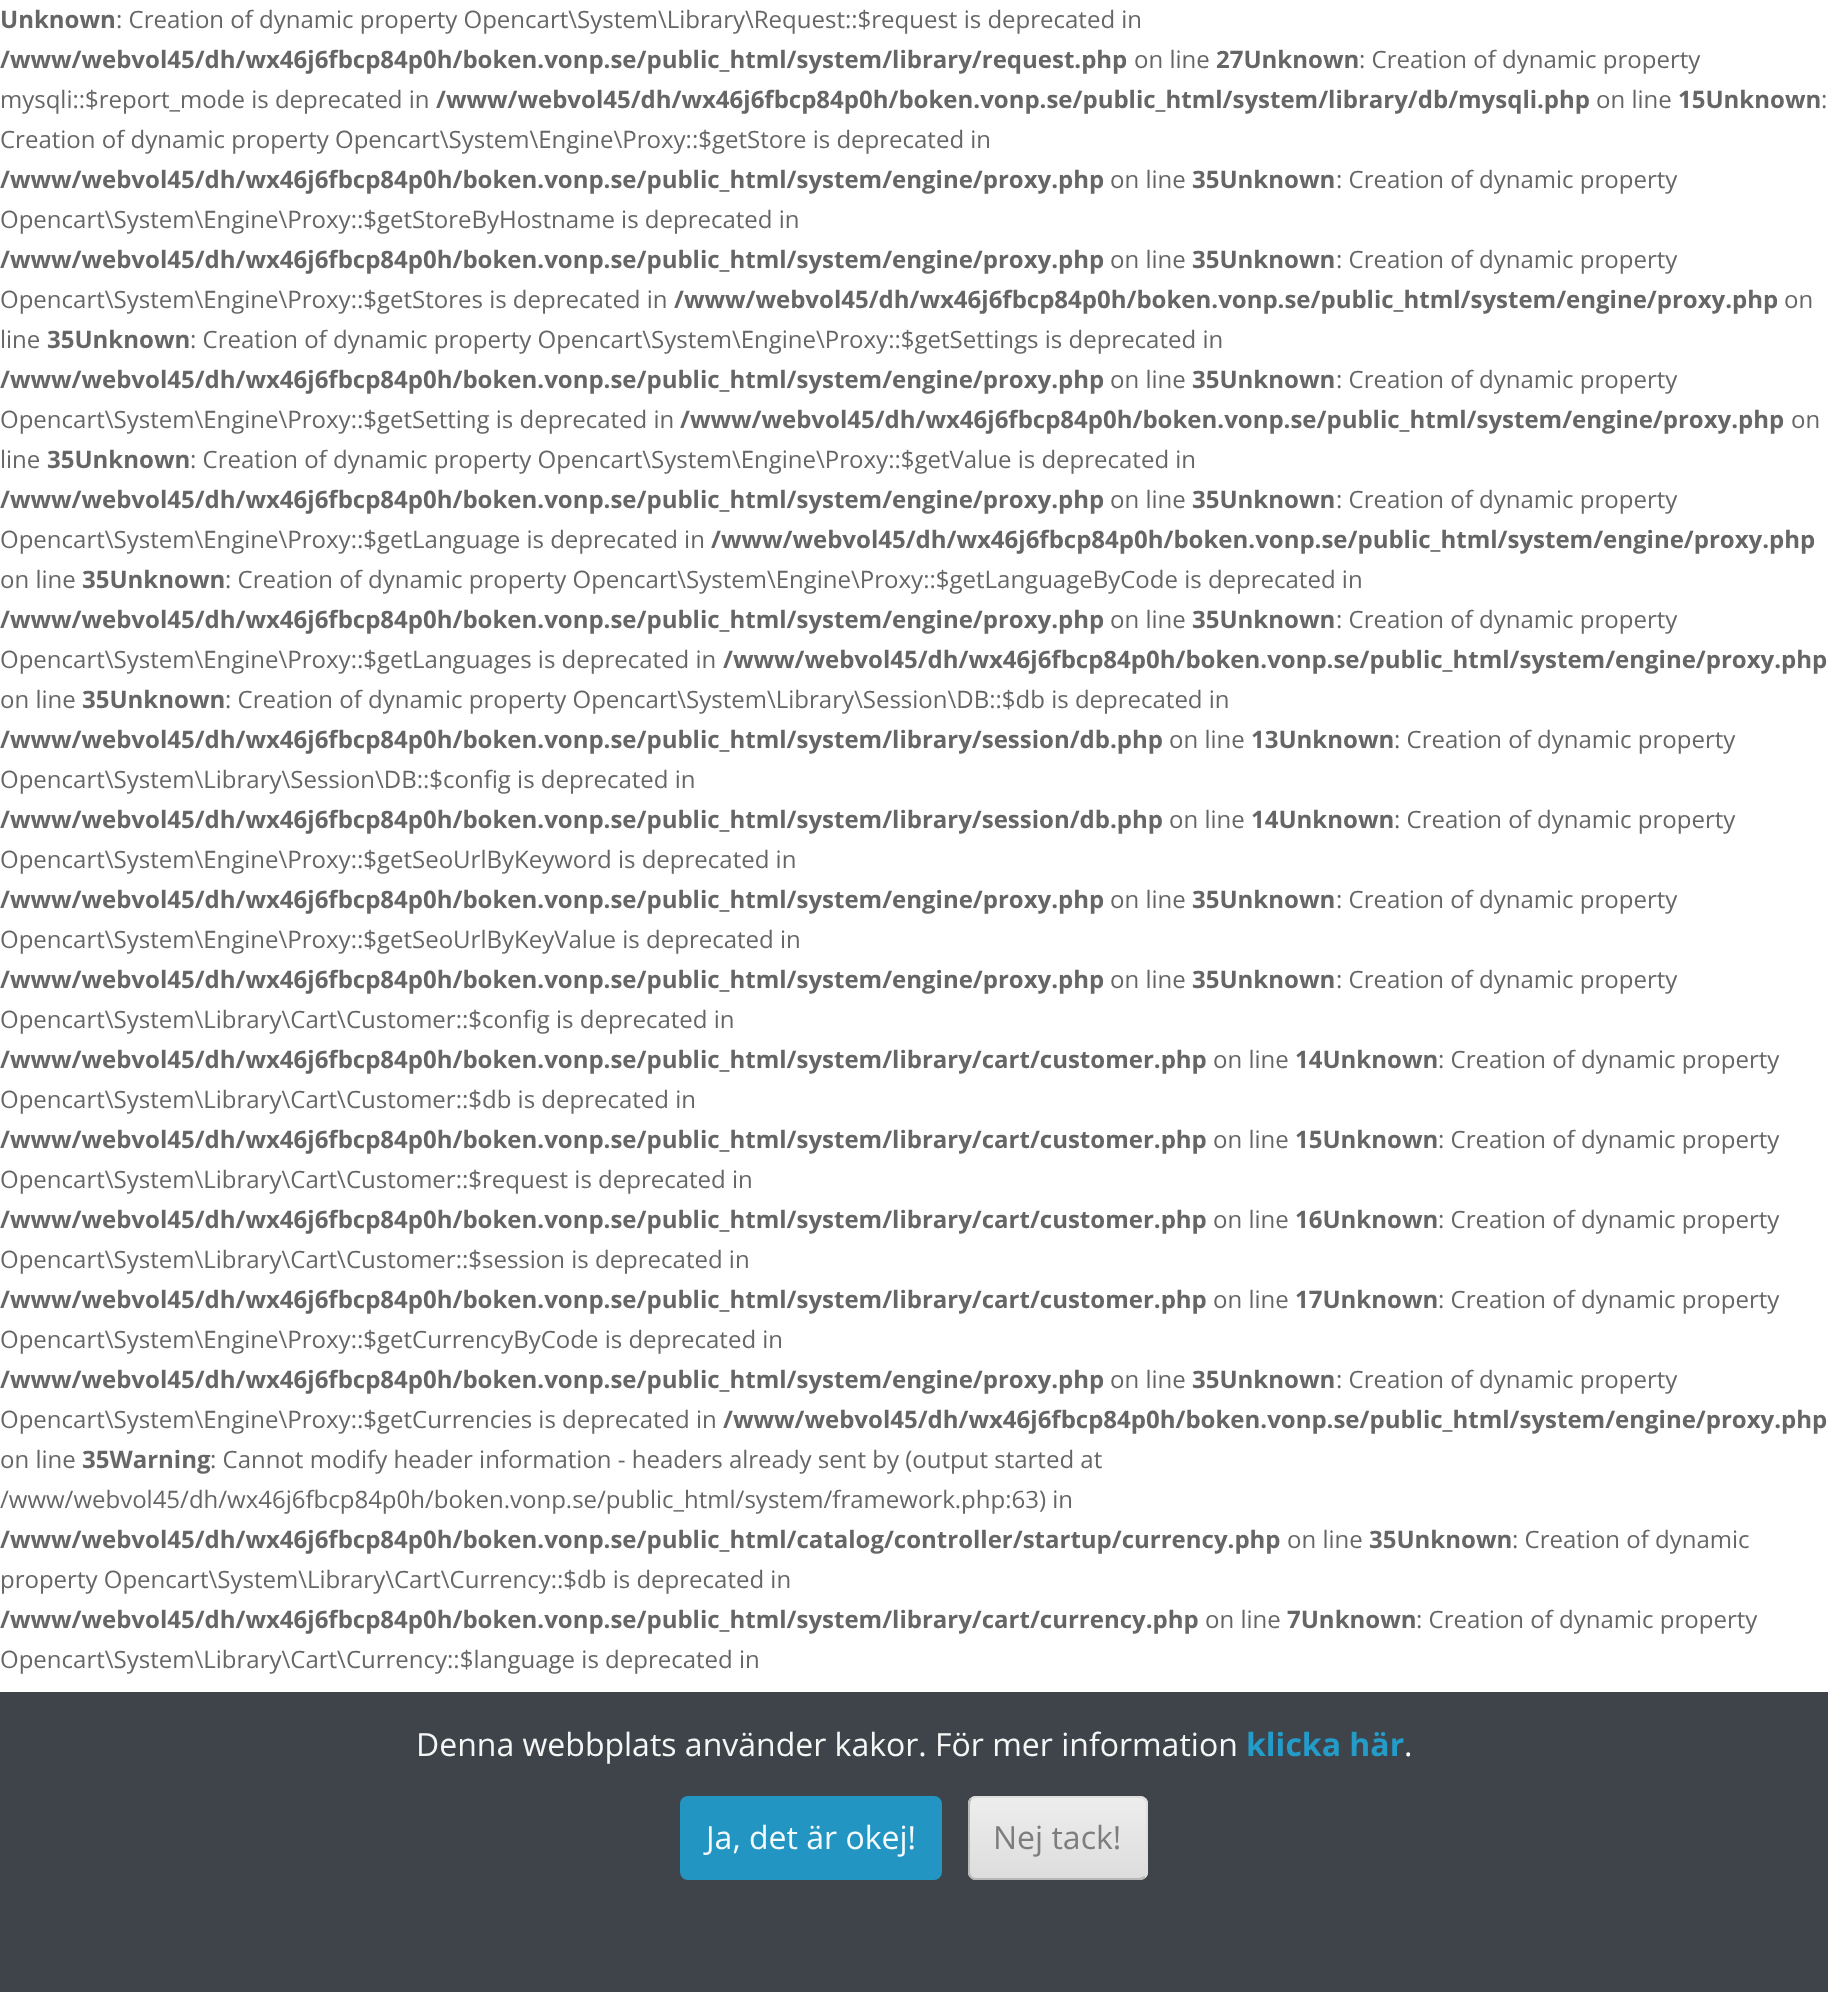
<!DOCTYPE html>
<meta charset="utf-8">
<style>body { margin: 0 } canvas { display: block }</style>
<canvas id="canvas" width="1828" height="1992"></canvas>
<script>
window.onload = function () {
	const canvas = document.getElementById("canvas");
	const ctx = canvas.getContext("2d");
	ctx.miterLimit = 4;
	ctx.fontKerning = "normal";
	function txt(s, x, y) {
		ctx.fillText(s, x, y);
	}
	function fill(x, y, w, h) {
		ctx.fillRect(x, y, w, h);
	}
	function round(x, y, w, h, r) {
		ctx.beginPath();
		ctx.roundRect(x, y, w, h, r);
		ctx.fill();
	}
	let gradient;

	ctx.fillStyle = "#FFFFFF";
	fill(0, 0, 1828, 1992);
	ctx.fillStyle = "rgba(52, 58, 64, 0.95)";
	fill(0, 1692, 1828, 300);
	ctx.fillStyle = "rgba(34, 154, 200, 0.95)";
	round(680, 1796, 262, 84, 8);
	ctx.fillStyle = "rgba(231, 231, 231, 0.95)";
	round(968, 1796, 180, 84, 8);
	ctx.save();
	ctx.beginPath();
	ctx.roundRect(968, 1796, 180, 84, 8);
	ctx.clip();
	gradient = ctx.createLinearGradient(1058, 1798, 1058, 1878);
	gradient.addColorStop(0, "rgba(238, 238, 238, 0.95)");
	gradient.addColorStop(1, "rgba(221, 221, 221, 0.95)");
	ctx.fillStyle = gradient;
	fill(968, 1798, 180, 80);
	ctx.restore();
	ctx.beginPath();
	ctx.moveTo(971, 1799);
	ctx.bezierCurveTo(972.5, 1797.5, 974, 1797, 976, 1797);
	ctx.lineTo(1140, 1797);
	ctx.bezierCurveTo(1142, 1797, 1143.5, 1797.5, 1145, 1799);
	ctx.bezierCurveTo(1146.5, 1800.5, 1147, 1802, 1147, 1804);
	ctx.lineTo(1147, 1872);
	ctx.bezierCurveTo(1147, 1874, 1146.5, 1875.5, 1145, 1877);
	ctx.strokeStyle = "rgba(221, 221, 221, 0.95)";
	ctx.lineWidth = 2;
	ctx.stroke();
	ctx.beginPath();
	ctx.moveTo(1145, 1877);
	ctx.lineTo(1140.5, 1879);
	ctx.lineTo(975.5, 1879);
	ctx.bezierCurveTo(973.5, 1879, 972, 1878, 971, 1877);
	ctx.strokeStyle = "#B7B7B7";
	ctx.stroke();
	ctx.beginPath();
	ctx.moveTo(971, 1877);
	ctx.bezierCurveTo(969.5, 1875.5, 969, 1874, 969, 1872);
	ctx.lineTo(969, 1804);
	ctx.bezierCurveTo(969, 1802, 969.5, 1800.5, 971, 1799);
	ctx.strokeStyle = "rgba(183, 183, 183, 0.95)";
	ctx.stroke();
	ctx.font = "bold 24px Open Sans";
	ctx.fillStyle = "#666666";
	txt("Unknown", 0, 28);
	ctx.font = "24px Open Sans";
	txt(": Creation of dynamic property Opencart\\System\\Library\\Request::$request is deprecated in", 116, 28);
	ctx.font = "bold 24px Open Sans";
	txt("/www/webvol45/dh/wx46j6fbcp84p0h/boken.vonp.se/public_html/system/library/request.php", 0, 68);
	ctx.font = "24px Open Sans";
	txt("on line", 1134, 68);
	ctx.font = "bold 24px Open Sans";
	txt("27Unknown", 1216, 68);
	ctx.font = "24px Open Sans";
	txt(": Creation of dynamic property", 1359, 68);
	txt("mysqli::$report_mode is deprecated in", 0, 108);
	ctx.font = "bold 24px Open Sans";
	txt("/www/webvol45/dh/wx46j6fbcp84p0h/boken.vonp.se/public_html/system/library/db/mysqli.php", 436, 108);
	ctx.font = "24px Open Sans";
	txt("on line", 1596, 108);
	ctx.font = "bold 24px Open Sans";
	txt("15Unknown", 1678, 108);
	ctx.font = "24px Open Sans";
	txt(":", 1821, 108);
	txt("Creation of dynamic property Opencart\\System\\Engine\\Proxy::$getStore is deprecated in", 0, 148);
	ctx.font = "bold 24px Open Sans";
	txt("/www/webvol45/dh/wx46j6fbcp84p0h/boken.vonp.se/public_html/system/engine/proxy.php", 0, 188);
	ctx.font = "24px Open Sans";
	txt("on line", 1110, 188);
	ctx.font = "bold 24px Open Sans";
	txt("35Unknown", 1192, 188);
	ctx.font = "24px Open Sans";
	txt(": Creation of dynamic property", 1336, 188);
	txt("Opencart\\System\\Engine\\Proxy::$getStoreByHostname is deprecated in", 0, 228);
	ctx.font = "bold 24px Open Sans";
	txt("/www/webvol45/dh/wx46j6fbcp84p0h/boken.vonp.se/public_html/system/engine/proxy.php", 0, 268);
	ctx.font = "24px Open Sans";
	txt("on line", 1110, 268);
	ctx.font = "bold 24px Open Sans";
	txt("35Unknown", 1192, 268);
	ctx.font = "24px Open Sans";
	txt(": Creation of dynamic property", 1336, 268);
	txt("Opencart\\System\\Engine\\Proxy::$getStores is deprecated in", 0, 308);
	ctx.font = "bold 24px Open Sans";
	txt("/www/webvol45/dh/wx46j6fbcp84p0h/boken.vonp.se/public_html/system/engine/proxy.php", 674, 308);
	ctx.font = "24px Open Sans";
	txt("on", 1784, 308);
	txt("line", 0, 348);
	ctx.font = "bold 24px Open Sans";
	txt("35Unknown", 47, 348);
	ctx.font = "24px Open Sans";
	txt(": Creation of dynamic property Opencart\\System\\Engine\\Proxy::$getSettings is deprecated in", 190, 348);
	ctx.font = "bold 24px Open Sans";
	txt("/www/webvol45/dh/wx46j6fbcp84p0h/boken.vonp.se/public_html/system/engine/proxy.php", 0, 388);
	ctx.font = "24px Open Sans";
	txt("on line", 1110, 388);
	ctx.font = "bold 24px Open Sans";
	txt("35Unknown", 1192, 388);
	ctx.font = "24px Open Sans";
	txt(": Creation of dynamic property", 1336, 388);
	txt("Opencart\\System\\Engine\\Proxy::$getSetting is deprecated in", 0, 428);
	ctx.font = "bold 24px Open Sans";
	txt("/www/webvol45/dh/wx46j6fbcp84p0h/boken.vonp.se/public_html/system/engine/proxy.php", 680, 428);
	ctx.font = "24px Open Sans";
	txt("on", 1791, 428);
	txt("line", 0, 468);
	ctx.font = "bold 24px Open Sans";
	txt("35Unknown", 47, 468);
	ctx.font = "24px Open Sans";
	txt(": Creation of dynamic property Opencart\\System\\Engine\\Proxy::$getValue is deprecated in", 190, 468);
	ctx.font = "bold 24px Open Sans";
	txt("/www/webvol45/dh/wx46j6fbcp84p0h/boken.vonp.se/public_html/system/engine/proxy.php", 0, 508);
	ctx.font = "24px Open Sans";
	txt("on line", 1110, 508);
	ctx.font = "bold 24px Open Sans";
	txt("35Unknown", 1192, 508);
	ctx.font = "24px Open Sans";
	txt(": Creation of dynamic property", 1336, 508);
	txt("Opencart\\System\\Engine\\Proxy::$getLanguage is deprecated in", 0, 548);
	ctx.font = "bold 24px Open Sans";
	txt("/www/webvol45/dh/wx46j6fbcp84p0h/boken.vonp.se/public_html/system/engine/proxy.php", 711, 548);
	ctx.font = "24px Open Sans";
	txt("on line", 0, 588);
	ctx.font = "bold 24px Open Sans";
	txt("35Unknown", 82, 588);
	ctx.font = "24px Open Sans";
	txt(": Creation of dynamic property Opencart\\System\\Engine\\Proxy::$getLanguageByCode is deprecated in", 225, 588);
	ctx.font = "bold 24px Open Sans";
	txt("/www/webvol45/dh/wx46j6fbcp84p0h/boken.vonp.se/public_html/system/engine/proxy.php", 0, 628);
	ctx.font = "24px Open Sans";
	txt("on line", 1110, 628);
	ctx.font = "bold 24px Open Sans";
	txt("35Unknown", 1192, 628);
	ctx.font = "24px Open Sans";
	txt(": Creation of dynamic property", 1336, 628);
	txt("Opencart\\System\\Engine\\Proxy::$getLanguages is deprecated in", 0, 668);
	ctx.font = "bold 24px Open Sans";
	txt("/www/webvol45/dh/wx46j6fbcp84p0h/boken.vonp.se/public_html/system/engine/proxy.php", 723, 668);
	ctx.font = "24px Open Sans";
	txt("on line", 0, 708);
	ctx.font = "bold 24px Open Sans";
	txt("35Unknown", 82, 708);
	ctx.font = "24px Open Sans";
	txt(": Creation of dynamic property Opencart\\System\\Library\\Session\\DB::$db is deprecated in", 225, 708);
	ctx.font = "bold 24px Open Sans";
	txt("/www/webvol45/dh/wx46j6fbcp84p0h/boken.vonp.se/public_html/system/library/session/db.php", 0, 748);
	ctx.font = "24px Open Sans";
	txt("on line", 1169, 748);
	ctx.font = "bold 24px Open Sans";
	txt("13Unknown", 1251, 748);
	ctx.font = "24px Open Sans";
	txt(": Creation of dynamic property", 1394, 748);
	txt("Opencart\\System\\Library\\Session\\DB::$config is deprecated in", 0, 788);
	ctx.font = "bold 24px Open Sans";
	txt("/www/webvol45/dh/wx46j6fbcp84p0h/boken.vonp.se/public_html/system/library/session/db.php", 0, 828);
	ctx.font = "24px Open Sans";
	txt("on line", 1169, 828);
	ctx.font = "bold 24px Open Sans";
	txt("14Unknown", 1251, 828);
	ctx.font = "24px Open Sans";
	txt(": Creation of dynamic property", 1394, 828);
	txt("Opencart\\System\\Engine\\Proxy::$getSeoUrlByKeyword is deprecated in", 0, 868);
	ctx.font = "bold 24px Open Sans";
	txt("/www/webvol45/dh/wx46j6fbcp84p0h/boken.vonp.se/public_html/system/engine/proxy.php", 0, 908);
	ctx.font = "24px Open Sans";
	txt("on line", 1110, 908);
	ctx.font = "bold 24px Open Sans";
	txt("35Unknown", 1192, 908);
	ctx.font = "24px Open Sans";
	txt(": Creation of dynamic property", 1336, 908);
	txt("Opencart\\System\\Engine\\Proxy::$getSeoUrlByKeyValue is deprecated in", 0, 948);
	ctx.font = "bold 24px Open Sans";
	txt("/www/webvol45/dh/wx46j6fbcp84p0h/boken.vonp.se/public_html/system/engine/proxy.php", 0, 988);
	ctx.font = "24px Open Sans";
	txt("on line", 1110, 988);
	ctx.font = "bold 24px Open Sans";
	txt("35Unknown", 1192, 988);
	ctx.font = "24px Open Sans";
	txt(": Creation of dynamic property", 1336, 988);
	txt("Opencart\\System\\Library\\Cart\\Customer::$config is deprecated in", 0, 1028);
	ctx.font = "bold 24px Open Sans";
	txt("/www/webvol45/dh/wx46j6fbcp84p0h/boken.vonp.se/public_html/system/library/cart/customer.php", 0, 1068);
	ctx.font = "24px Open Sans";
	txt("on line", 1213, 1068);
	ctx.font = "bold 24px Open Sans";
	txt("14Unknown", 1295, 1068);
	ctx.font = "24px Open Sans";
	txt(": Creation of dynamic property", 1438, 1068);
	txt("Opencart\\System\\Library\\Cart\\Customer::$db is deprecated in", 0, 1108);
	ctx.font = "bold 24px Open Sans";
	txt("/www/webvol45/dh/wx46j6fbcp84p0h/boken.vonp.se/public_html/system/library/cart/customer.php", 0, 1148);
	ctx.font = "24px Open Sans";
	txt("on line", 1213, 1148);
	ctx.font = "bold 24px Open Sans";
	txt("15Unknown", 1295, 1148);
	ctx.font = "24px Open Sans";
	txt(": Creation of dynamic property", 1438, 1148);
	txt("Opencart\\System\\Library\\Cart\\Customer::$request is deprecated in", 0, 1188);
	ctx.font = "bold 24px Open Sans";
	txt("/www/webvol45/dh/wx46j6fbcp84p0h/boken.vonp.se/public_html/system/library/cart/customer.php", 0, 1228);
	ctx.font = "24px Open Sans";
	txt("on line", 1213, 1228);
	ctx.font = "bold 24px Open Sans";
	txt("16Unknown", 1295, 1228);
	ctx.font = "24px Open Sans";
	txt(": Creation of dynamic property", 1438, 1228);
	txt("Opencart\\System\\Library\\Cart\\Customer::$session is deprecated in", 0, 1268);
	ctx.font = "bold 24px Open Sans";
	txt("/www/webvol45/dh/wx46j6fbcp84p0h/boken.vonp.se/public_html/system/library/cart/customer.php", 0, 1308);
	ctx.font = "24px Open Sans";
	txt("on line", 1213, 1308);
	ctx.font = "bold 24px Open Sans";
	txt("17Unknown", 1295, 1308);
	ctx.font = "24px Open Sans";
	txt(": Creation of dynamic property", 1438, 1308);
	txt("Opencart\\System\\Engine\\Proxy::$getCurrencyByCode is deprecated in", 0, 1348);
	ctx.font = "bold 24px Open Sans";
	txt("/www/webvol45/dh/wx46j6fbcp84p0h/boken.vonp.se/public_html/system/engine/proxy.php", 0, 1388);
	ctx.font = "24px Open Sans";
	txt("on line", 1110, 1388);
	ctx.font = "bold 24px Open Sans";
	txt("35Unknown", 1192, 1388);
	ctx.font = "24px Open Sans";
	txt(": Creation of dynamic property", 1336, 1388);
	txt("Opencart\\System\\Engine\\Proxy::$getCurrencies is deprecated in", 0, 1428);
	ctx.font = "bold 24px Open Sans";
	txt("/www/webvol45/dh/wx46j6fbcp84p0h/boken.vonp.se/public_html/system/engine/proxy.php", 723, 1428);
	ctx.font = "24px Open Sans";
	txt("on line", 0, 1468);
	ctx.font = "bold 24px Open Sans";
	txt("35Warning", 82, 1468);
	ctx.font = "24px Open Sans";
	txt(": Cannot modify header information - headers already sent by (output started at", 210, 1468);
	txt("/www/webvol45/dh/wx46j6fbcp84p0h/boken.vonp.se/public_html/system/framework.php:63) in", 0, 1508);
	ctx.font = "bold 24px Open Sans";
	txt("/www/webvol45/dh/wx46j6fbcp84p0h/boken.vonp.se/public_html/catalog/controller/startup/currency.php", 0, 1548);
	ctx.font = "24px Open Sans";
	txt("on line", 1287, 1548);
	ctx.font = "bold 24px Open Sans";
	txt("35Unknown", 1369, 1548);
	ctx.font = "24px Open Sans";
	txt(": Creation of dynamic", 1512, 1548);
	txt("property Opencart\\System\\Library\\Cart\\Currency::$db is deprecated in", 0, 1588);
	ctx.font = "bold 24px Open Sans";
	txt("/www/webvol45/dh/wx46j6fbcp84p0h/boken.vonp.se/public_html/system/library/cart/currency.php", 0, 1628);
	ctx.font = "24px Open Sans";
	txt("on line", 1205, 1628);
	ctx.font = "bold 24px Open Sans";
	txt("7Unknown", 1287, 1628);
	ctx.font = "24px Open Sans";
	txt(": Creation of dynamic property", 1416, 1628);
	txt("Opencart\\System\\Library\\Cart\\Currency::$language is deprecated in", 0, 1668);
	ctx.font = "32px Open Sans";
	ctx.fillStyle = "#F5F6F6";
	txt("Denna webbplats använder kakor. För mer information", 416, 1756);
	ctx.font = "bold 32px Open Sans";
	ctx.fillStyle = "#249CCA";
	txt("klicka här", 1246, 1756);
	ctx.font = "32px Open Sans";
	ctx.fillStyle = "#FFFFFF";
	txt(".", 1404, 1756);
	ctx.fillStyle = "#F4FAFC";
	txt("Ja, det är okej!", 706, 1849);
	ctx.fillStyle = "#7D7D7D";
	txt("Nej tack!", 993, 1849);
};
</script>
